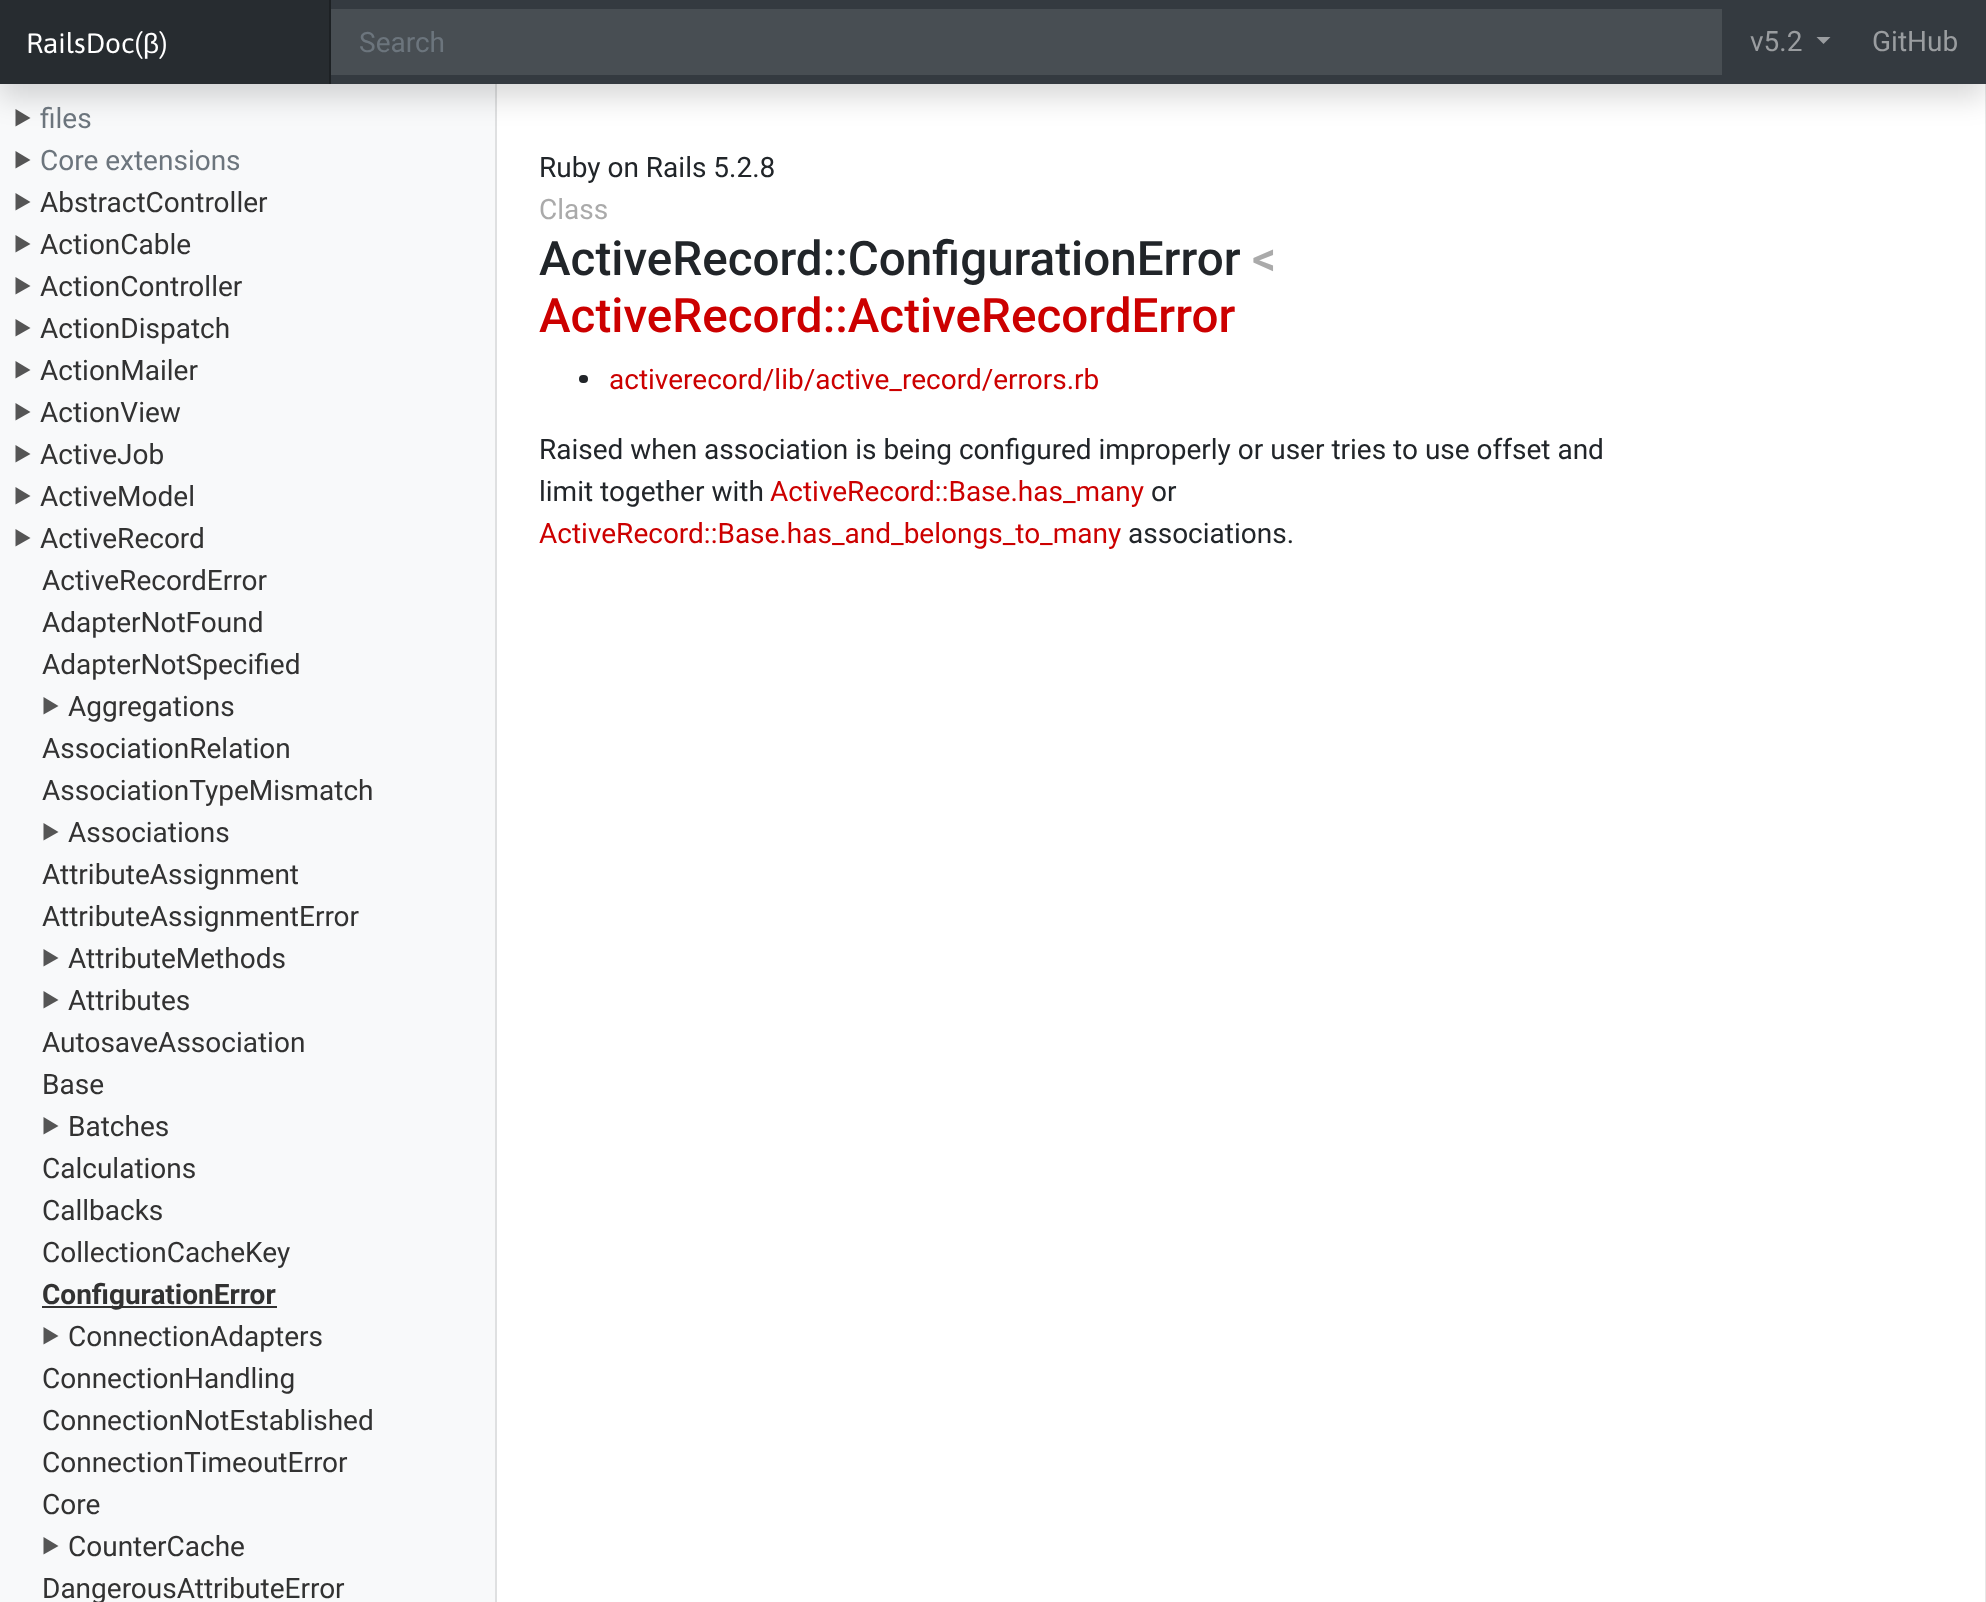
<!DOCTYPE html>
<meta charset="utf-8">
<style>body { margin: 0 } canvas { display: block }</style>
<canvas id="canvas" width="1986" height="1602"></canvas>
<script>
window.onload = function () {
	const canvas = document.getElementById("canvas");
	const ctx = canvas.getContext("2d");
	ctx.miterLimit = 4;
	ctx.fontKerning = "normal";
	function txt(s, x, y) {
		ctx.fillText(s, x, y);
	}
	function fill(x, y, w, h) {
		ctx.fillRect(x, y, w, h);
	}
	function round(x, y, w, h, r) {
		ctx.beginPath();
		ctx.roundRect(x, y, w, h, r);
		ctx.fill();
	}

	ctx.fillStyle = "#FFFFFF";
	fill(0, 0, 1986, 1602);
	ctx.fillStyle = "#F8F9FA";
	fill(0, 84, 495, 1518);
	ctx.fillStyle = "#DFE0E1";
	fill(495, 84, 2, 1518);
	ctx.fillStyle = "#555555";
	ctx.beginPath();
	ctx.moveTo(15.5, 109);
	ctx.lineTo(15.5, 126.5);
	ctx.lineTo(30.5, 118);
	ctx.closePath();
	ctx.fill();
	ctx.fillStyle = "#E6E6E6";
	fill(1985, 84, 1, 1518);
	ctx.fillStyle = "rgba(0, 0, 0, 0.15)";
	ctx.filter = "blur(14px)";
	ctx.beginPath();
	ctx.rect(0, 14, 1986, 84);
	ctx.fill();
	ctx.filter = "none";
	ctx.fillStyle = "#343A40";
	fill(331, 0, 1655, 84);
	ctx.fillStyle = "#272C30";
	fill(0, 0, 329, 84);
	ctx.fillStyle = "#1D2124";
	fill(329, 0, 2, 84);
	ctx.fillStyle = "#484E53";
	fill(331, 9, 1391, 66);
	ctx.fillStyle = "#9A9DA0";
	ctx.beginPath();
	ctx.moveTo(1816.5, 37);
	ctx.lineTo(1830.5, 37);
	ctx.lineTo(1823.5, 44);
	ctx.closePath();
	ctx.fill();
	ctx.fillStyle = "#555555";
	ctx.beginPath();
	ctx.moveTo(15.5, 151);
	ctx.lineTo(15.5, 168.5);
	ctx.lineTo(30.5, 160);
	ctx.closePath();
	ctx.fill();
	ctx.beginPath();
	ctx.moveTo(15.5, 193);
	ctx.lineTo(15.5, 210.5);
	ctx.lineTo(30.5, 202);
	ctx.closePath();
	ctx.fill();
	ctx.beginPath();
	ctx.moveTo(15.5, 235);
	ctx.lineTo(15.5, 252.5);
	ctx.lineTo(30.5, 244);
	ctx.closePath();
	ctx.fill();
	ctx.beginPath();
	ctx.moveTo(15.5, 277);
	ctx.lineTo(15.5, 294.5);
	ctx.lineTo(30.5, 286);
	ctx.closePath();
	ctx.fill();
	ctx.beginPath();
	ctx.moveTo(15.5, 319);
	ctx.lineTo(15.5, 336.5);
	ctx.lineTo(30.5, 328);
	ctx.closePath();
	ctx.fill();
	ctx.beginPath();
	ctx.moveTo(15.5, 361);
	ctx.lineTo(15.5, 378.5);
	ctx.lineTo(30.5, 370);
	ctx.closePath();
	ctx.fill();
	ctx.beginPath();
	ctx.moveTo(15.5, 403);
	ctx.lineTo(15.5, 420.5);
	ctx.lineTo(30.5, 412);
	ctx.closePath();
	ctx.fill();
	ctx.beginPath();
	ctx.moveTo(15.5, 445);
	ctx.lineTo(15.5, 462.5);
	ctx.lineTo(30.5, 454);
	ctx.closePath();
	ctx.fill();
	ctx.beginPath();
	ctx.moveTo(15.5, 487);
	ctx.lineTo(15.5, 504.5);
	ctx.lineTo(30.5, 496);
	ctx.closePath();
	ctx.fill();
	ctx.beginPath();
	ctx.moveTo(15.5, 529);
	ctx.lineTo(15.5, 546.5);
	ctx.lineTo(30.5, 538);
	ctx.closePath();
	ctx.fill();
	ctx.beginPath();
	ctx.moveTo(43.5, 697);
	ctx.lineTo(43.5, 714.5);
	ctx.lineTo(58.5, 706);
	ctx.closePath();
	ctx.fill();
	ctx.beginPath();
	ctx.moveTo(43.5, 823);
	ctx.lineTo(43.5, 840.5);
	ctx.lineTo(58.5, 832);
	ctx.closePath();
	ctx.fill();
	ctx.beginPath();
	ctx.moveTo(43.5, 949);
	ctx.lineTo(43.5, 966.5);
	ctx.lineTo(58.5, 958);
	ctx.closePath();
	ctx.fill();
	ctx.beginPath();
	ctx.moveTo(43.5, 991);
	ctx.lineTo(43.5, 1008.5);
	ctx.lineTo(58.5, 1000);
	ctx.closePath();
	ctx.fill();
	ctx.beginPath();
	ctx.moveTo(43.5, 1117);
	ctx.lineTo(43.5, 1134.5);
	ctx.lineTo(58.5, 1126);
	ctx.closePath();
	ctx.fill();
	ctx.fillStyle = "#323232";
	fill(42, 1306, 235, 2);
	ctx.fillStyle = "#555555";
	ctx.beginPath();
	ctx.moveTo(43.5, 1327);
	ctx.lineTo(43.5, 1344.5);
	ctx.lineTo(58.5, 1336);
	ctx.closePath();
	ctx.fill();
	ctx.beginPath();
	ctx.moveTo(43.5, 1537);
	ctx.lineTo(43.5, 1554.5);
	ctx.lineTo(58.5, 1546);
	ctx.closePath();
	ctx.fill();
	ctx.fillStyle = "#212529";
	round(579, 375, 9, 8, 4);
	ctx.font = "28px Asap";
	ctx.fillStyle = "#FFFFFF";
	txt("RailsDoc(", 26, 53);
	ctx.font = "28px Liberation Sans";
	txt("β", 143, 53);
	ctx.font = "28px Asap";
	txt(")", 159, 53);
	ctx.font = "28px Roboto";
	ctx.fillStyle = "#6C757D";
	txt("Search", 359, 52);
	ctx.fillStyle = "#9A9DA0";
	txt("v5.2", 1750, 51);
	txt("GitHub", 1872, 51);
	ctx.fillStyle = "#6C757D";
	txt("files", 40, 128);
	txt("Core extensions", 40, 170);
	ctx.fillStyle = "#323232";
	txt("AbstractController", 40, 212);
	txt("ActionCable", 40, 254);
	txt("ActionController", 40, 296);
	txt("ActionDispatch", 40, 338);
	txt("ActionMailer", 40, 380);
	txt("ActionView", 40, 422);
	txt("ActiveJob", 40, 464);
	txt("ActiveModel", 40, 506);
	txt("ActiveRecord", 40, 548);
	txt("ActiveRecordError", 42, 590);
	txt("AdapterNotFound", 42, 632);
	txt("AdapterNotSpecified", 42, 674);
	txt("Aggregations", 68, 716);
	txt("AssociationRelation", 42, 758);
	txt("AssociationTypeMismatch", 42, 800);
	txt("Associations", 68, 842);
	txt("AttributeAssignment", 42, 884);
	txt("AttributeAssignmentError", 42, 926);
	txt("AttributeMethods", 68, 968);
	txt("Attributes", 68, 1010);
	txt("AutosaveAssociation", 42, 1052);
	txt("Base", 42, 1094);
	txt("Batches", 68, 1136);
	txt("Calculations", 42, 1178);
	txt("Callbacks", 42, 1220);
	txt("CollectionCacheKey", 42, 1262);
	ctx.font = "bold 28px Roboto";
	txt("ConfigurationError", 42, 1304);
	ctx.font = "28px Roboto";
	txt("ConnectionAdapters", 68, 1346);
	txt("ConnectionHandling", 42, 1388);
	txt("ConnectionNotEstablished", 42, 1430);
	txt("ConnectionTimeoutError", 42, 1472);
	txt("Core", 42, 1514);
	txt("CounterCache", 68, 1556);
	txt("DangerousAttributeError", 42, 1598);
	ctx.fillStyle = "#212529";
	txt("Ruby on Rails 5.2.8", 539, 177);
	ctx.fillStyle = "#AAAAAA";
	txt("Class", 539, 219);
	ctx.font = "500 47.6px Roboto";
	ctx.fillStyle = "#212529";
	txt("ActiveRecord::ConfigurationError", 539, 275);
	ctx.fillStyle = "#AAAAAA";
	txt("<", 1252, 275);
	ctx.fillStyle = "#CC0000";
	txt("ActiveRecord::ActiveRecordError", 539, 332);
	ctx.font = "28px Roboto";
	txt("activerecord/lib/active_record/errors.rb", 609, 389);
	ctx.fillStyle = "#212529";
	txt("Raised when association is being configured improperly or user tries to use offset and", 539, 459);
	txt("limit together with", 539, 501);
	ctx.fillStyle = "#CC0000";
	txt("ActiveRecord::Base.has_many", 770, 501);
	ctx.fillStyle = "#212529";
	txt("or", 1151, 501);
	ctx.fillStyle = "#CC0000";
	txt("ActiveRecord::Base.has_and_belongs_to_many", 539, 543);
	ctx.fillStyle = "#212529";
	txt("associations.", 1128, 543);
};
</script>
